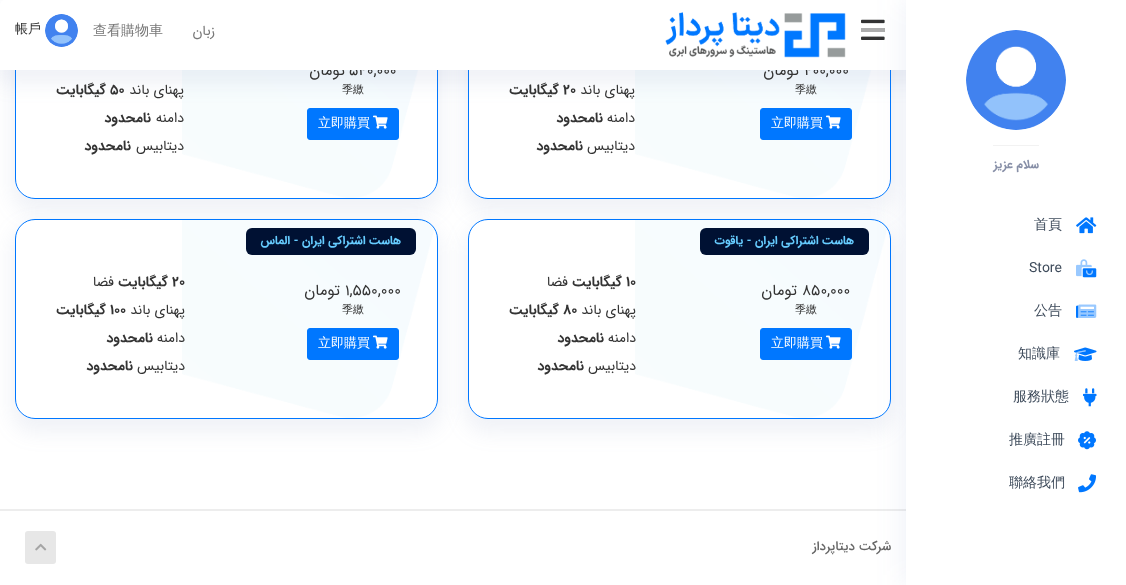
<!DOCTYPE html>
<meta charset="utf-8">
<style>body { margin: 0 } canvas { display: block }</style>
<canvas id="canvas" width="1126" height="585"></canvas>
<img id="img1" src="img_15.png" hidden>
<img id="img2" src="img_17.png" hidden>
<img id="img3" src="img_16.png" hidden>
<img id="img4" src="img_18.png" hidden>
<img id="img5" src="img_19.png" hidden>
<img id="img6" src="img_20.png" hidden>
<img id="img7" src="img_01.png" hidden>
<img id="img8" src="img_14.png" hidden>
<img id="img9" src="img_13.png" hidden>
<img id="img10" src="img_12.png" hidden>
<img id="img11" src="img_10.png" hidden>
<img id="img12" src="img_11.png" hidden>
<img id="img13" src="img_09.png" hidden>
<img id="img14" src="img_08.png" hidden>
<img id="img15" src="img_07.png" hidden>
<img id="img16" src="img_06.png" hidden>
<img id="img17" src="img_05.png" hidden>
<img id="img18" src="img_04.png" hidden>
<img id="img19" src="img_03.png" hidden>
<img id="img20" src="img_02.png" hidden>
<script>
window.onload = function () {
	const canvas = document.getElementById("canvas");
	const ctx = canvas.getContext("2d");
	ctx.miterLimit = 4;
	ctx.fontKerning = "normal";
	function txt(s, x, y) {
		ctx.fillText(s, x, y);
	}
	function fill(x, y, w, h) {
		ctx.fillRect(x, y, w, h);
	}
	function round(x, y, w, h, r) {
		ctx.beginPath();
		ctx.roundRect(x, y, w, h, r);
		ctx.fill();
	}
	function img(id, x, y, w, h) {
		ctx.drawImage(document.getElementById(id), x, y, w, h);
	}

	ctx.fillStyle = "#FFFFFF";
	fill(0, 0, 1126, 585);
	ctx.fillStyle = "rgba(105, 130, 175, 0.1)";
	ctx.filter = "blur(10px)";
	ctx.beginPath();
	ctx.roundRect(464, 5, 431, 208, 24);
	ctx.fill();
	ctx.filter = "none";
	ctx.fillStyle = "#FFFFFF";
	round(468, -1, 423, 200, 20);
	img("img1", 635, 70, 236, 128);
	ctx.beginPath();
	ctx.roundRect(468.5, -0.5, 422, 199, 19.5);
	ctx.strokeStyle = "#0077FF";
	ctx.stroke();
	ctx.fillStyle = "#0077FF";
	ctx.beginPath();
	ctx.roundRect(760.5, 108.5, 91, 31, 2.5);
	ctx.fill();
	ctx.stroke();
	ctx.fillStyle = "rgba(105, 130, 175, 0.1)";
	ctx.filter = "blur(10px)";
	ctx.beginPath();
	ctx.roundRect(11, 5, 431, 208, 24);
	ctx.fill();
	ctx.filter = "none";
	ctx.fillStyle = "#FFFFFF";
	round(15, -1, 423, 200, 20);
	img("img2", 182, 70, 236, 128);
	ctx.beginPath();
	ctx.roundRect(15.5, -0.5, 422, 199, 19.5);
	ctx.stroke();
	ctx.fillStyle = "#0077FF";
	ctx.beginPath();
	ctx.roundRect(307.5, 108.5, 91, 31, 2.5);
	ctx.fill();
	ctx.stroke();
	ctx.fillStyle = "rgba(105, 130, 175, 0.1)";
	ctx.filter = "blur(10px)";
	ctx.beginPath();
	ctx.roundRect(-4, 6, 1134, 78, 9);
	ctx.fill();
	ctx.filter = "none";
	img("img3", 826, 115, 15, 14);
	img("img3", 373, 115, 15, 14);
	ctx.filter = "blur(10px)";
	ctx.beginPath();
	ctx.roundRect(464, 225, 431, 208, 24);
	ctx.fill();
	ctx.filter = "none";
	ctx.fillStyle = "#FFFFFF";
	round(468, 219, 423, 200, 20);
	img("img4", 635, 220, 252, 198);
	ctx.beginPath();
	ctx.roundRect(468.5, 219.5, 422, 199, 19.5);
	ctx.stroke();
	ctx.fillStyle = "#001133";
	round(700, 228, 169, 27, 6);
	ctx.fillStyle = "#0077FF";
	ctx.beginPath();
	ctx.roundRect(760.5, 328.5, 91, 31, 2.5);
	ctx.fill();
	ctx.stroke();
	img("img3", 826, 335, 15, 14);
	ctx.fillStyle = "rgba(105, 130, 175, 0.1)";
	ctx.filter = "blur(10px)";
	ctx.beginPath();
	ctx.roundRect(11, 225, 431, 208, 24);
	ctx.fill();
	ctx.filter = "none";
	ctx.fillStyle = "#FFFFFF";
	round(15, 219, 423, 200, 20);
	img("img5", 182, 220, 252, 198);
	ctx.beginPath();
	ctx.roundRect(15.5, 219.5, 422, 199, 19.5);
	ctx.stroke();
	ctx.fillStyle = "#001133";
	round(246, 228, 170, 27, 6);
	ctx.fillStyle = "#0077FF";
	ctx.beginPath();
	ctx.roundRect(307.5, 328.5, 91, 31, 2.5);
	ctx.fill();
	ctx.stroke();
	img("img3", 373, 335, 15, 14);
	ctx.fillStyle = "#EDEDED";
	fill(0, 509, 906, 2);
	ctx.fillStyle = "#E7E7E7";
	round(25, 531, 31, 33, 3);
	img("img6", 35, 543, 12, 8);
	ctx.font = "15.5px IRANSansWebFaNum";
	ctx.fillStyle = "#333333";
	txt("400,000", 804, 75);
	ctx.direction = "rtl";
	txt("تومان", 799, 75);
	ctx.direction = "ltr";
	ctx.font = "500 11px WenQuanYi Zen Hei";
	txt("季繳", 795, 93);
	ctx.font = "500 13px WenQuanYi Zen Hei";
	ctx.fillStyle = "#FFFFFF";
	txt("立即購買", 771, 127);
	ctx.direction = "rtl";
	ctx.font = "14px IRANSansWebFaNum";
	ctx.fillStyle = "#333333";
	txt("پهنای باند", 635, 94);
	ctx.direction = "ltr";
	ctx.font = "bold 14px IRANSansWebFaNum";
	txt("20", 563, 94);
	ctx.direction = "rtl";
	txt("گیگابایت", 559, 94);
	ctx.font = "14px IRANSansWebFaNum";
	txt("دامنه", 635, 122);
	ctx.font = "bold 14px IRANSansWebFaNum";
	txt("نامحدود", 603, 122);
	ctx.font = "14px IRANSansWebFaNum";
	txt("دیتابیس", 635, 150);
	ctx.font = "bold 14px IRANSansWebFaNum";
	txt("نامحدود", 583, 150);
	ctx.direction = "ltr";
	ctx.font = "15.5px IRANSansWebFaNum";
	txt("540,000", 349, 75);
	ctx.direction = "rtl";
	txt("تومان", 345, 75);
	ctx.fillStyle = "#FFFFFF";
	ctx.beginPath();
	ctx.roundRect(0, 0, 1126, 70, [5, 5, 0, 0]);
	ctx.fill();
	img("img7", 861, 19, 24, 21);
	ctx.fillStyle = "#ADADAD";
	fill(861, 28, 24, 4);
	ctx.fillStyle = "rgba(69, 101, 173, 0.1)";
	ctx.filter = "blur(15px)";
	ctx.beginPath();
	ctx.rect(906, 0, 220, 585);
	ctx.fill();
	ctx.filter = "none";
	ctx.fillStyle = "#FFFFFF";
	fill(906, 0, 220, 585);
	img("img8", 1078, 474, 18, 19);
	ctx.direction = "ltr";
	ctx.font = "500 14px WenQuanYi Zen Hei";
	ctx.fillStyle = "#3E4B5B";
	txt("聯絡我們", 1009, 487);
	img("img9", 1078, 431, 18, 19);
	txt("推廣註冊", 1009, 444);
	img("img10", 1083, 388, 14, 19);
	txt("服務狀態", 1013, 401);
	img("img11", 1074, 347, 23, 14);
	img("img12", 1074, 350, 12, 11);
	txt("知識庫", 1018, 358);
	img("img13", 1076, 305, 18, 13);
	img("img14", 1078, 304, 19, 14);
	txt("公告", 1034, 315);
	img("img15", 1082, 268, 15, 10);
	img("img16", 1076, 259, 17, 18);
	ctx.font = "14px IRANSansWebFaNum";
	txt("Store", 1029, 272);
	img("img17", 1076, 217, 21, 17);
	ctx.font = "500 14px WenQuanYi Zen Hei";
	txt("首頁", 1034, 229);
	ctx.direction = "rtl";
	ctx.font = "bold 12px IRANSansWebFaNum";
	ctx.fillStyle = "#878FA7";
	txt("سلام عزیز", 1039, 168);
	ctx.fillStyle = "#F2F2F2";
	fill(993, 145, 46, 1);
	img("img18", 966, 30, 100, 100);
	ctx.direction = "ltr";
	ctx.font = "500 14px WenQuanYi Zen Hei";
	ctx.fillStyle = "#777777";
	txt("查看購物車", 93, 35);
	ctx.direction = "rtl";
	ctx.font = "14px IRANSansWebFaNum";
	txt("زبان", 215, 35);
	ctx.direction = "ltr";
	ctx.font = "500 13px WenQuanYi Zen Hei";
	ctx.fillStyle = "#333333";
	txt("帳戶", 15, 33);
	img("img19", 45, 14, 33, 33);
	img("img20", 665, 12, 181, 46);
	ctx.font = "500 11px WenQuanYi Zen Hei";
	txt("季繳", 342, 93);
	ctx.font = "500 13px WenQuanYi Zen Hei";
	ctx.fillStyle = "#FFFFFF";
	txt("立即購買", 318, 127);
	ctx.direction = "rtl";
	ctx.font = "14px IRANSansWebFaNum";
	ctx.fillStyle = "#333333";
	txt("پهنای باند", 184, 94);
	ctx.direction = "ltr";
	ctx.font = "bold 14px IRANSansWebFaNum";
	txt("50", 110, 94);
	ctx.direction = "rtl";
	txt("گیگابایت", 106, 94);
	ctx.font = "14px IRANSansWebFaNum";
	txt("دامنه", 184, 122);
	ctx.font = "bold 14px IRANSansWebFaNum";
	txt("نامحدود", 151, 122);
	ctx.font = "14px IRANSansWebFaNum";
	txt("دیتابیس", 184, 150);
	ctx.font = "bold 14px IRANSansWebFaNum";
	txt("نامحدود", 131, 150);
	ctx.font = "bold 12px IRANSansWebFaNum";
	ctx.fillStyle = "#66CCFF";
	txt("هاست اشتراکی ایران - یاقوت", 854, 244);
	ctx.direction = "ltr";
	ctx.font = "15.5px IRANSansWebFaNum";
	ctx.fillStyle = "#333333";
	txt("850,000", 802, 295);
	ctx.direction = "rtl";
	txt("تومان", 797, 295);
	ctx.direction = "ltr";
	ctx.font = "500 11px WenQuanYi Zen Hei";
	txt("季繳", 795, 313);
	ctx.font = "500 13px WenQuanYi Zen Hei";
	ctx.fillStyle = "#FFFFFF";
	txt("立即購買", 771, 347);
	ctx.font = "bold 14px IRANSansWebFaNum";
	ctx.fillStyle = "#333333";
	txt("10", 626, 286);
	ctx.direction = "rtl";
	txt("گیگابایت", 622, 286);
	ctx.font = "14px IRANSansWebFaNum";
	txt("فضا", 568, 286);
	txt("پهنای باند", 636, 314);
	ctx.direction = "ltr";
	ctx.font = "bold 14px IRANSansWebFaNum";
	txt("80", 563, 314);
	ctx.direction = "rtl";
	txt("گیگابایت", 559, 314);
	ctx.font = "14px IRANSansWebFaNum";
	txt("دامنه", 636, 342);
	ctx.font = "bold 14px IRANSansWebFaNum";
	txt("نامحدود", 604, 342);
	ctx.font = "14px IRANSansWebFaNum";
	txt("دیتابیس", 636, 370);
	ctx.font = "bold 14px IRANSansWebFaNum";
	txt("نامحدود", 584, 370);
	ctx.font = "bold 12px IRANSansWebFaNum";
	ctx.fillStyle = "#66CCFF";
	txt("هاست اشتراکی ایران - الماس", 401, 244);
	ctx.direction = "ltr";
	ctx.font = "15.5px IRANSansWebFaNum";
	ctx.fillStyle = "#333333";
	txt("1,550,000", 345, 295);
	ctx.direction = "rtl";
	txt("تومان", 340, 295);
	ctx.direction = "ltr";
	ctx.font = "500 11px WenQuanYi Zen Hei";
	txt("季繳", 342, 313);
	ctx.font = "500 13px WenQuanYi Zen Hei";
	ctx.fillStyle = "#FFFFFF";
	txt("立即購買", 318, 347);
	ctx.font = "bold 14px IRANSansWebFaNum";
	ctx.fillStyle = "#333333";
	txt("20", 172, 286);
	ctx.direction = "rtl";
	txt("گیگابایت", 168, 286);
	ctx.font = "14px IRANSansWebFaNum";
	txt("فضا", 114, 286);
	txt("پهنای باند", 185, 314);
	ctx.direction = "ltr";
	ctx.font = "bold 14px IRANSansWebFaNum";
	txt("100", 110, 314);
	ctx.direction = "rtl";
	txt("گیگابایت", 106, 314);
	ctx.font = "14px IRANSansWebFaNum";
	txt("دامنه", 185, 342);
	ctx.font = "bold 14px IRANSansWebFaNum";
	txt("نامحدود", 153, 342);
	ctx.font = "14px IRANSansWebFaNum";
	txt("دیتابیس", 185, 370);
	ctx.font = "bold 14px IRANSansWebFaNum";
	txt("نامحدود", 133, 370);
	ctx.font = "500 13px IRANSansWebFaNum";
	ctx.fillStyle = "#666666";
	txt("شرکت ديتاپرداز", 891, 550);
};
</script>
